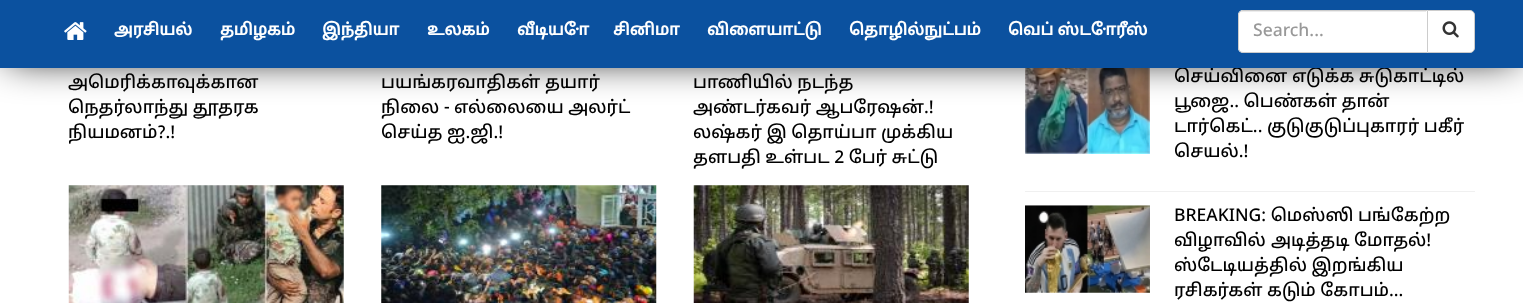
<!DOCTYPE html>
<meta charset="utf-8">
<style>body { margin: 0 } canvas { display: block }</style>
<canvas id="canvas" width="1523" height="303"></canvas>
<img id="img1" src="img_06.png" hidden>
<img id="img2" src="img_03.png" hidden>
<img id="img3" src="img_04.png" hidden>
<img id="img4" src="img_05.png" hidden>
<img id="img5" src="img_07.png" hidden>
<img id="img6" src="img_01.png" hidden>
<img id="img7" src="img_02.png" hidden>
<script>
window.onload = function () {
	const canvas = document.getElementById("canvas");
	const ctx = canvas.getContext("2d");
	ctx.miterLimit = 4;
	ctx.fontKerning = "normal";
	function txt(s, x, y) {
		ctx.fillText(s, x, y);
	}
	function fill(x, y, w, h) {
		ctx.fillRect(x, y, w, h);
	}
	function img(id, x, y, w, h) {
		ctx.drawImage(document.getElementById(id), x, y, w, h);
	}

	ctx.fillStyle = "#FFFFFF";
	fill(0, 0, 1523, 303);
	img("img1", 1025, 68, 125, 86);
	ctx.fillStyle = "#000000";
	ctx.filter = "blur(19px)";
	ctx.beginPath();
	ctx.rect(8, 6, 1508, 53);
	ctx.fill();
	ctx.filter = "none";
	img("img2", 68, 185, 276, 118);
	img("img3", 381, 185, 276, 118);
	img("img4", 693, 185, 276, 118);
	ctx.fillStyle = "#F0F0F0";
	fill(1025, 191, 450, 1);
	img("img5", 1025, 205, 125, 88);
	ctx.font = "500 17.5px Noto Sans Tamil";
	ctx.fillStyle = "#000000";
	txt("அமெரிக்காவுக்கான", 68, 88);
	txt("நெதர்லாந்து தூதரக", 68, 113);
	ctx.save();
	ctx.beginPath();
	ctx.rect(69, 35, 275, 138);
	ctx.clip();
	txt("நியமனம்?.!", 68, 138);
	ctx.restore();
	txt("பயங்கரவாதிகள் தயார்", 381, 88);
	ctx.save();
	ctx.beginPath();
	ctx.rect(381, 35, 275, 138);
	ctx.clip();
	txt("நிலை - எல்லையை அலர்ட்", 381, 113);
	ctx.restore();
	txt("செய்த ஐ.ஜி.!", 381, 138);
	txt("பாணியில் நடந்த", 693, 88);
	txt("அண்டர்கவர் ஆபரேஷன்.!", 693, 113);
	txt("லஷ்கர் இ தொய்பா முக்கிய", 693, 138);
	txt("தளபதி உள்பட 2 பேர் சுட்டு", 693, 163);
	txt("செய்வினை எடுக்க சுடுகாட்டில்", 1174, 82);
	ctx.fillStyle = "#0B519F";
	fill(0, 0, 1523, 68);
	ctx.fillStyle = "#FFFFFF";
	ctx.beginPath();
	ctx.roundRect(1426.5, 10.5, 48, 42, [0, 4.5, 4.5, 0]);
	ctx.fill();
	ctx.strokeStyle = "#CCCCCC";
	ctx.stroke();
	ctx.beginPath();
	ctx.roundRect(1238, 10, 190, 43, [5, 0, 0, 5]);
	ctx.fill();
	ctx.fillStyle = "#ECECEC";
	ctx.beginPath();
	ctx.moveTo(1242, 12);
	ctx.lineTo(1426, 12);
	ctx.lineTo(1426, 11);
	ctx.lineTo(1242, 11);
	ctx.bezierCurveTo(1240, 12, 1239, 14, 1239, 16);
	ctx.bezierCurveTo(1239, 14, 1240, 12, 1242, 12);
	ctx.closePath();
	ctx.fill();
	ctx.beginPath();
	ctx.roundRect(1238.5, 10.5, 189, 42, [4.5, 0, 0, 4.5]);
	ctx.stroke();
	ctx.fillStyle = "#999999";
	txt("Search...", 1253, 36);
	ctx.font = "bold 16.25px Noto Sans Tamil";
	ctx.fillStyle = "#FFFFFF";
	txt("வெப் ஸ்டோரீஸ்", 1008, 35);
	txt("தொழில்நுட்பம்", 849, 35);
	txt("விளையாட்டு", 707, 35);
	txt("சினிமா", 613, 35);
	txt("வீடியோ", 517, 35);
	txt("உலகம்", 427, 35);
	txt("இந்தியா", 322, 35);
	txt("தமிழகம்", 220, 35);
	txt("அரசியல்", 114, 35);
	img("img6", 64, 22, 23, 18);
	img("img7", 1442, 21, 17, 17);
	ctx.font = "500 17.5px Noto Sans Tamil";
	ctx.fillStyle = "#000000";
	txt("பூஜை.. பெண்கள் தான்", 1174, 107);
	txt("டார்கெட்.. குடுகுடுப்புகாரர் பகீர்", 1174, 132);
	txt("செயல்.!", 1174, 157);
	txt("BREAKING: மெஸ்ஸி பங்கேற்ற", 1174, 221);
	ctx.save();
	ctx.beginPath();
	ctx.rect(1175, 205, 300, 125);
	ctx.clip();
	txt("விழாவில்", 1174, 246);
	ctx.restore();
	txt("அடித்தடி மோதல்!", 1271, 246);
	txt("ஸ்டேடியத்தில் இறங்கிய", 1174, 271);
	txt("ரசிகர்கள் கடும் கோபம்...", 1174, 296);
};
</script>
